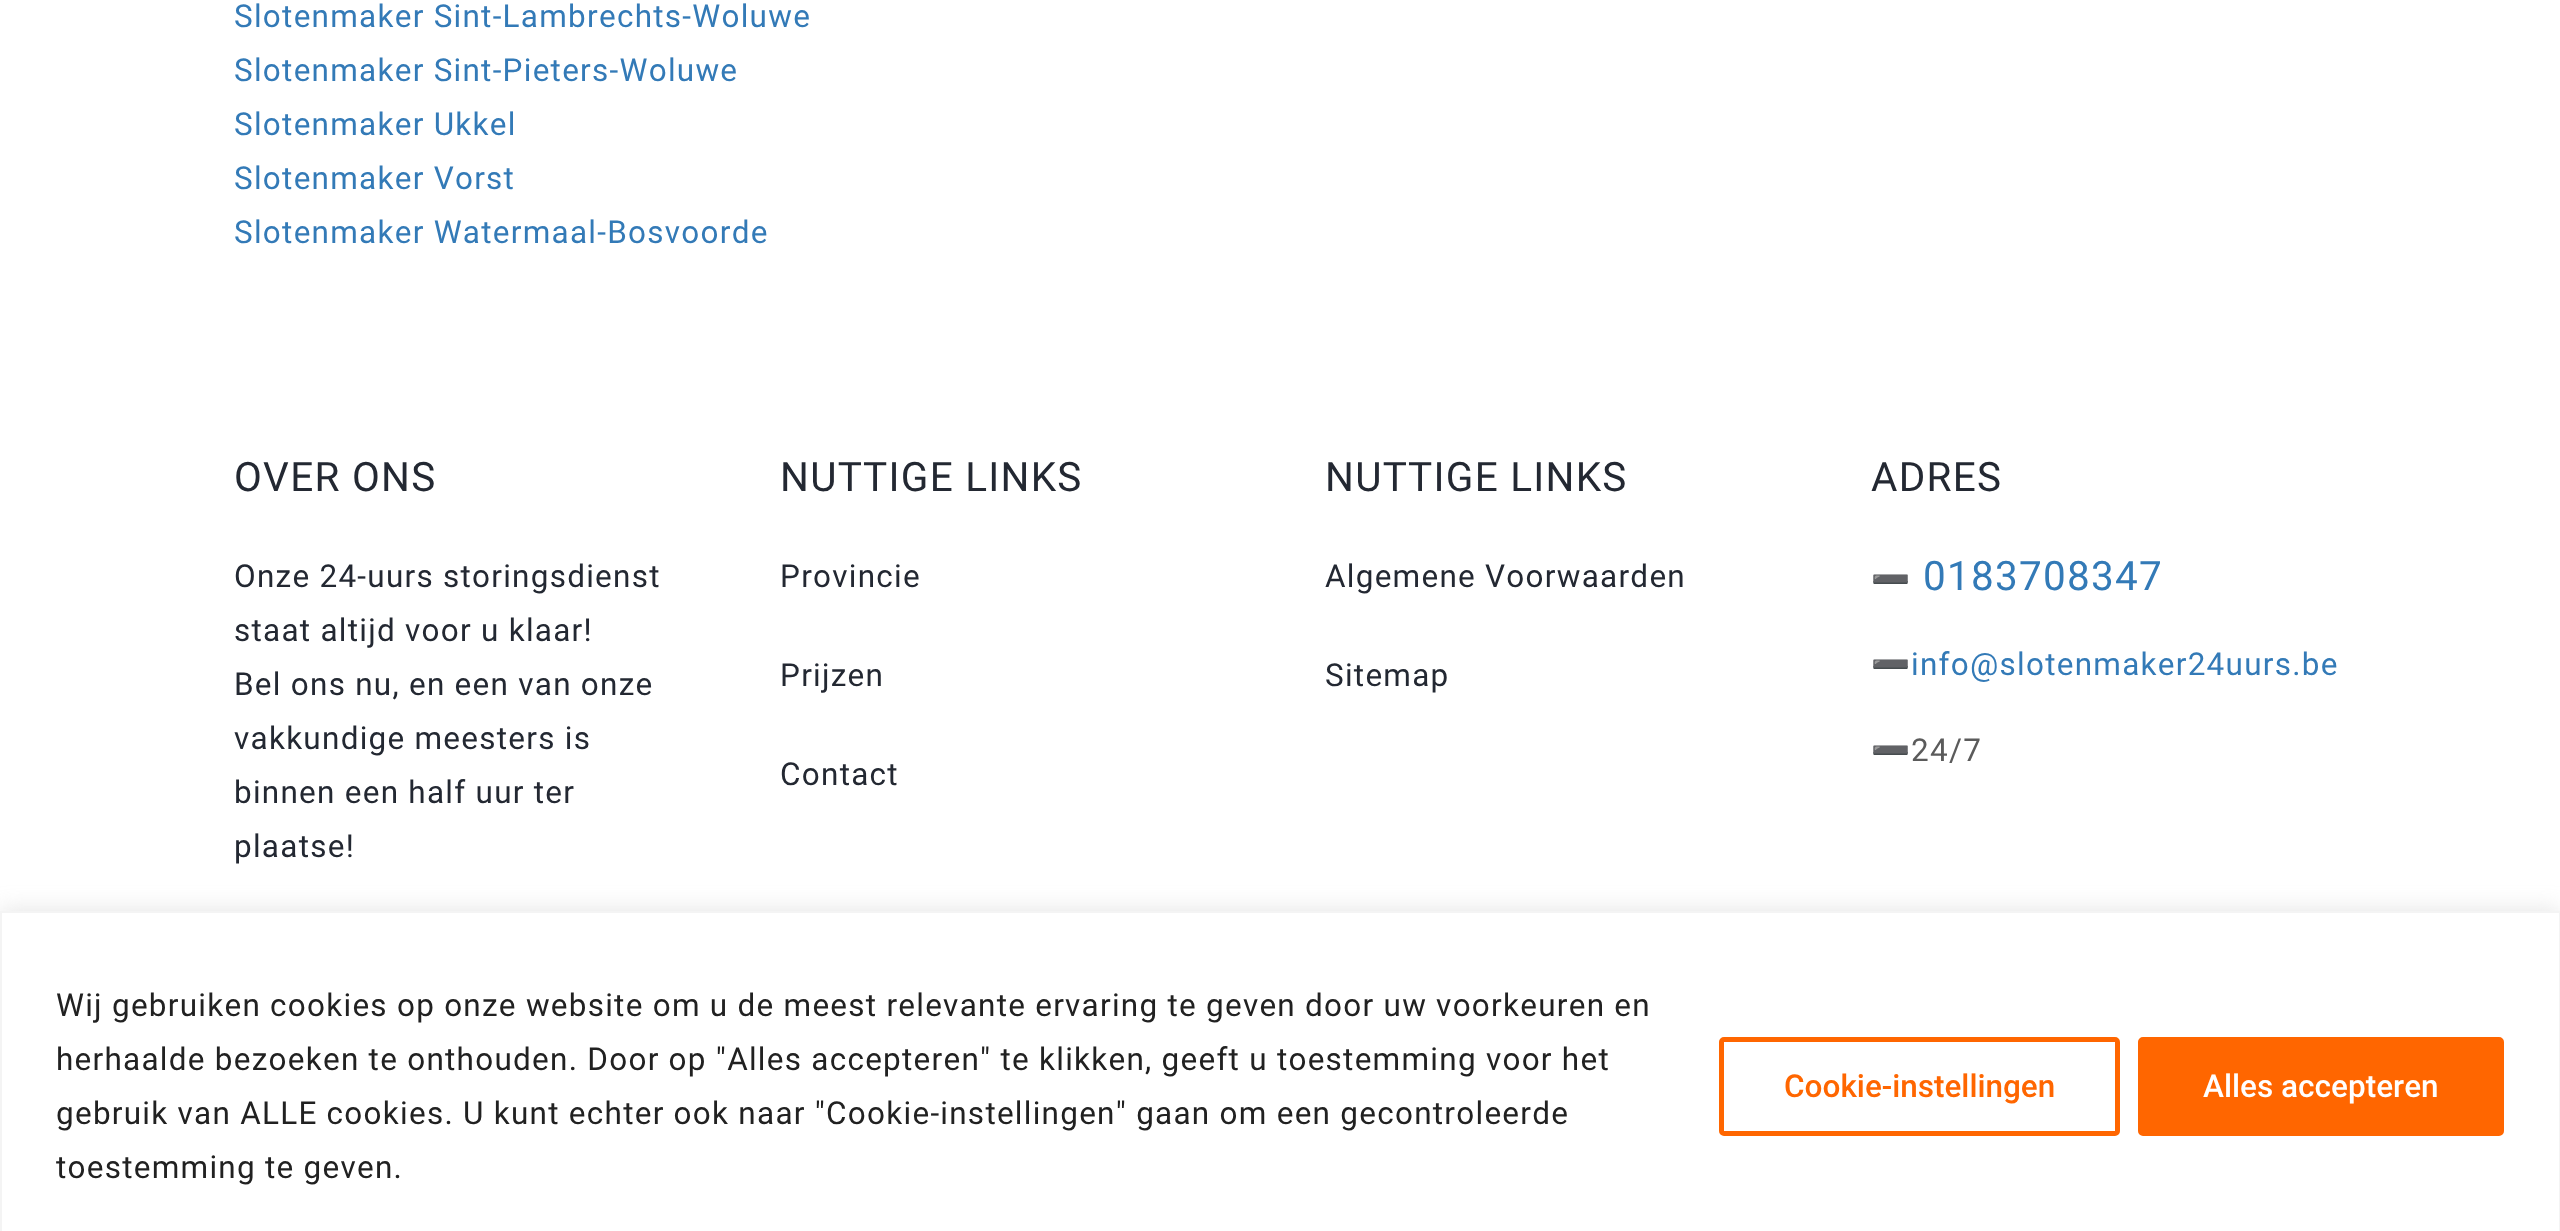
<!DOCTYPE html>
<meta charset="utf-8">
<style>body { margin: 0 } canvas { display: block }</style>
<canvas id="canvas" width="2560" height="1231"></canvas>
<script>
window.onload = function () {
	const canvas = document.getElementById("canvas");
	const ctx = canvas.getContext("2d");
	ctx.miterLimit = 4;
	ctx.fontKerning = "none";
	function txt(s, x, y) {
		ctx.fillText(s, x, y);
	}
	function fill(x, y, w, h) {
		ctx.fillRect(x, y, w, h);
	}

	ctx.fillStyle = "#FFFFFF";
	fill(0, 0, 2560, 1231);
	ctx.fillStyle = "rgba(172, 171, 171, 0.3)";
	ctx.filter = "blur(11px)";
	ctx.beginPath();
	ctx.rect(0, 909, 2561, 322);
	ctx.fill();
	ctx.filter = "none";
	ctx.fillStyle = "#FFFFFF";
	ctx.beginPath();
	ctx.rect(1, 912, 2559, 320);
	ctx.fill();
	ctx.strokeStyle = "#F4F4F4";
	ctx.lineWidth = 2;
	ctx.stroke();
	ctx.beginPath();
	ctx.roundRect(1721.5, 1039.5, 396, 94, 2.5);
	ctx.strokeStyle = "#FF6600";
	ctx.lineWidth = 5;
	ctx.stroke();
	ctx.fillStyle = "#FF6600";
	ctx.beginPath();
	ctx.roundRect(2140.5, 1039.5, 361, 94, 2.5);
	ctx.fill();
	ctx.stroke();
	ctx.letterSpacing = "1.26px";
	ctx.font = "31.5px Roboto";
	ctx.fillStyle = "#337AB7";
	txt("Slotenmaker Sint-Lambrechts-Woluwe", 234, 27);
	txt("Slotenmaker Sint-Pieters-Woluwe", 234, 81);
	txt("Slotenmaker Ukkel", 234, 135);
	txt("Slotenmaker Vorst", 234, 189);
	txt("Slotenmaker Watermaal-Bosvoorde", 234, 243);
	ctx.font = "40.5px Roboto";
	ctx.fillStyle = "#232832";
	txt("OVER ONS", 234, 491);
	ctx.font = "31.5px Roboto";
	txt("Onze 24-uurs storingsdienst", 234, 587);
	txt("staat altijd voor u klaar!", 234, 641);
	txt("Bel ons nu, en een van onze", 234, 695);
	txt("vakkundige meesters is", 234, 749);
	txt("binnen een half uur ter", 234, 803);
	txt("plaatse!", 234, 857);
	ctx.font = "40.5px Roboto";
	txt("NUTTIGE LINKS", 780, 491);
	ctx.font = "31.5px Roboto";
	txt("Provincie", 780, 587);
	txt("Prijzen", 780, 686);
	txt("Contact", 780, 785);
	ctx.font = "40.5px Roboto";
	txt("NUTTIGE LINKS", 1325, 491);
	ctx.font = "31.5px Roboto";
	txt("Algemene Voorwaarden", 1325, 587);
	txt("Sitemap", 1325, 686);
	ctx.font = "40.5px Roboto";
	txt("ADRES", 1871, 491);
	ctx.font = "31.5px Noto Color Emoji";
	ctx.fillStyle = "#5B5B5B";
	txt("➖", 1871, 590);
	ctx.font = "40.5px Roboto";
	ctx.fillStyle = "#337AB7";
	txt("0183708347", 1923, 590);
	ctx.font = "31.5px Noto Color Emoji";
	ctx.fillStyle = "#5B5B5B";
	txt("➖", 1871, 675);
	ctx.font = "31.5px Roboto";
	ctx.fillStyle = "#337AB7";
	txt("info@slotenmaker24uurs.be", 1911, 675);
	ctx.font = "31.5px Noto Color Emoji";
	ctx.fillStyle = "#5B5B5B";
	txt("➖", 1871, 761);
	ctx.font = "31.5px Roboto";
	txt("24/7", 1911, 761);
	ctx.fillStyle = "#212121";
	txt("Wij gebruiken cookies op onze website om u de meest relevante ervaring te geven door uw voorkeuren en", 56, 1016);
	txt("herhaalde bezoeken te onthouden. Door op \"Alles accepteren\" te klikken, geeft u toestemming voor het", 56, 1070);
	txt("gebruik van ALLE cookies. U kunt echter ook naar \"Cookie-instellingen\" gaan om een gecontroleerde", 56, 1124);
	txt("toestemming te geven.", 56, 1178);
	ctx.letterSpacing = "0px";
	ctx.font = "500 31.5px Roboto";
	ctx.fillStyle = "#FF6600";
	txt("Cookie-instellingen", 1784, 1097);
	ctx.fillStyle = "#FFFFFF";
	txt("Alles accepteren", 2203, 1097);
};
</script>
